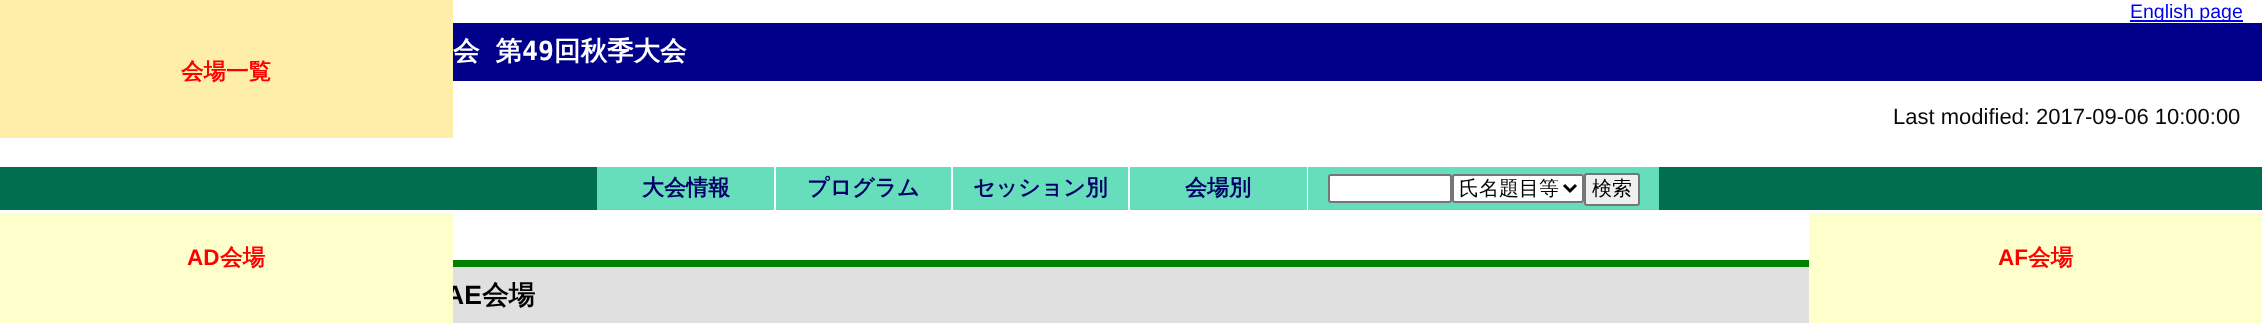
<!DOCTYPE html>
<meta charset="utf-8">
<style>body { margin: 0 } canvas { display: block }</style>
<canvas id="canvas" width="2262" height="323"></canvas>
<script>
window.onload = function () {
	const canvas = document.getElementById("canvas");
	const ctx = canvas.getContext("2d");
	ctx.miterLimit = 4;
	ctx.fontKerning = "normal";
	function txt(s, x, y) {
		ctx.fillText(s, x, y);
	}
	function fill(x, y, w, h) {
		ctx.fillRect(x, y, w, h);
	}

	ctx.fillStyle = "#FFFFFF";
	fill(0, 0, 2262, 323);
	ctx.fillStyle = "#0000EE";
	fill(2130, 20, 113, 2);
	ctx.fillStyle = "#00008B";
	fill(453, 23, 1809, 58);
	ctx.fillStyle = "#006E4F";
	fill(0, 167, 2262, 43);
	ctx.fillStyle = "#FFFFFF";
	fill(774, 167, 2, 43);
	ctx.fillStyle = "#66DDBB";
	fill(597, 167, 177, 43);
	ctx.fillStyle = "#FFFFFF";
	fill(951, 167, 2, 43);
	ctx.fillStyle = "#66DDBB";
	fill(776, 167, 175, 43);
	ctx.fillStyle = "#FFFFFF";
	fill(1128, 167, 2, 43);
	ctx.fillStyle = "#66DDBB";
	fill(953, 167, 175, 43);
	ctx.fillStyle = "#FFFFFF";
	fill(1307, 167, 1, 43);
	ctx.fillStyle = "#66DDBB";
	fill(1130, 167, 177, 43);
	fill(1308, 167, 351, 43);
	ctx.fillStyle = "#FFFFFF";
	ctx.beginPath();
	ctx.roundRect(1329, 175, 122, 27, 2);
	ctx.fill();
	ctx.strokeStyle = "#767676";
	ctx.lineWidth = 2;
	ctx.stroke();
	ctx.beginPath();
	ctx.roundRect(1453, 175, 130, 27, 2);
	ctx.fill();
	ctx.stroke();
	ctx.beginPath();
	ctx.moveTo(1564, 185);
	ctx.lineTo(1570, 191);
	ctx.lineTo(1576, 185);
	ctx.strokeStyle = "#000000";
	ctx.lineWidth = 3;
	ctx.stroke();
	ctx.fillStyle = "#EFEFEF";
	ctx.beginPath();
	ctx.roundRect(1585, 174, 54, 31, 2);
	ctx.fill();
	ctx.strokeStyle = "#767676";
	ctx.lineWidth = 2;
	ctx.stroke();
	ctx.fillStyle = "#E0E0E0";
	fill(453, 267, 1356, 56);
	ctx.fillStyle = "#008000";
	fill(453, 260, 1356, 7);
	ctx.fillStyle = "#FFEEAA";
	fill(0, 0, 453, 138);
	ctx.fillStyle = "#FFFFCC";
	fill(1809, 213, 453, 110);
	ctx.font = "19.5px Liberation Sans";
	ctx.fillStyle = "#0000EE";
	txt("English page", 2130, 18);
	ctx.wordSpacing = "8px";
	ctx.font = "bold 26.5px WenQuanYi Zen Hei";
	ctx.fillStyle = "#FFFFFF";
	txt("会 第", 453, 60);
	ctx.wordSpacing = "0px";
	ctx.font = "bold 26.5px DejaVu Sans Mono";
	txt("49", 522, 60);
	ctx.font = "bold 26.5px WenQuanYi Zen Hei";
	txt("回秋季大会", 554, 60);
	ctx.font = "22px Liberation Sans";
	ctx.fillStyle = "#090909";
	txt("Last modified: 2017-09-06 10:00:00", 1893, 124);
	ctx.font = "bold 22px WenQuanYi Zen Hei";
	ctx.fillStyle = "#000066";
	txt("大会情報", 642, 195);
	txt("プログラム", 807, 195);
	txt("セッション別", 973, 195);
	txt("会場別", 1185, 195);
	ctx.font = "500 20px WenQuanYi Zen Hei";
	ctx.fillStyle = "#000000";
	txt("氏名題目等", 1459, 195);
	txt("検索", 1592, 195);
	ctx.font = "bold 26.5px Liberation Sans";
	txt("AE", 445, 304);
	ctx.font = "bold 26.5px WenQuanYi Zen Hei";
	txt("会場", 482, 304);
	ctx.font = "bold 22.5px WenQuanYi Zen Hei";
	ctx.fillStyle = "#FF0000";
	txt("会場一覧", 181, 79);
	ctx.fillStyle = "#FFFFCC";
	fill(0, 213, 453, 110);
	ctx.font = "bold 22.5px Liberation Sans";
	ctx.fillStyle = "#FF0000";
	txt("AD", 187, 265);
	ctx.font = "bold 22.5px WenQuanYi Zen Hei";
	txt("会場", 220, 265);
	ctx.font = "bold 22.5px Liberation Sans";
	txt("AF", 1998, 265);
	ctx.font = "bold 22.5px WenQuanYi Zen Hei";
	txt("会場", 2028, 265);
};
</script>
